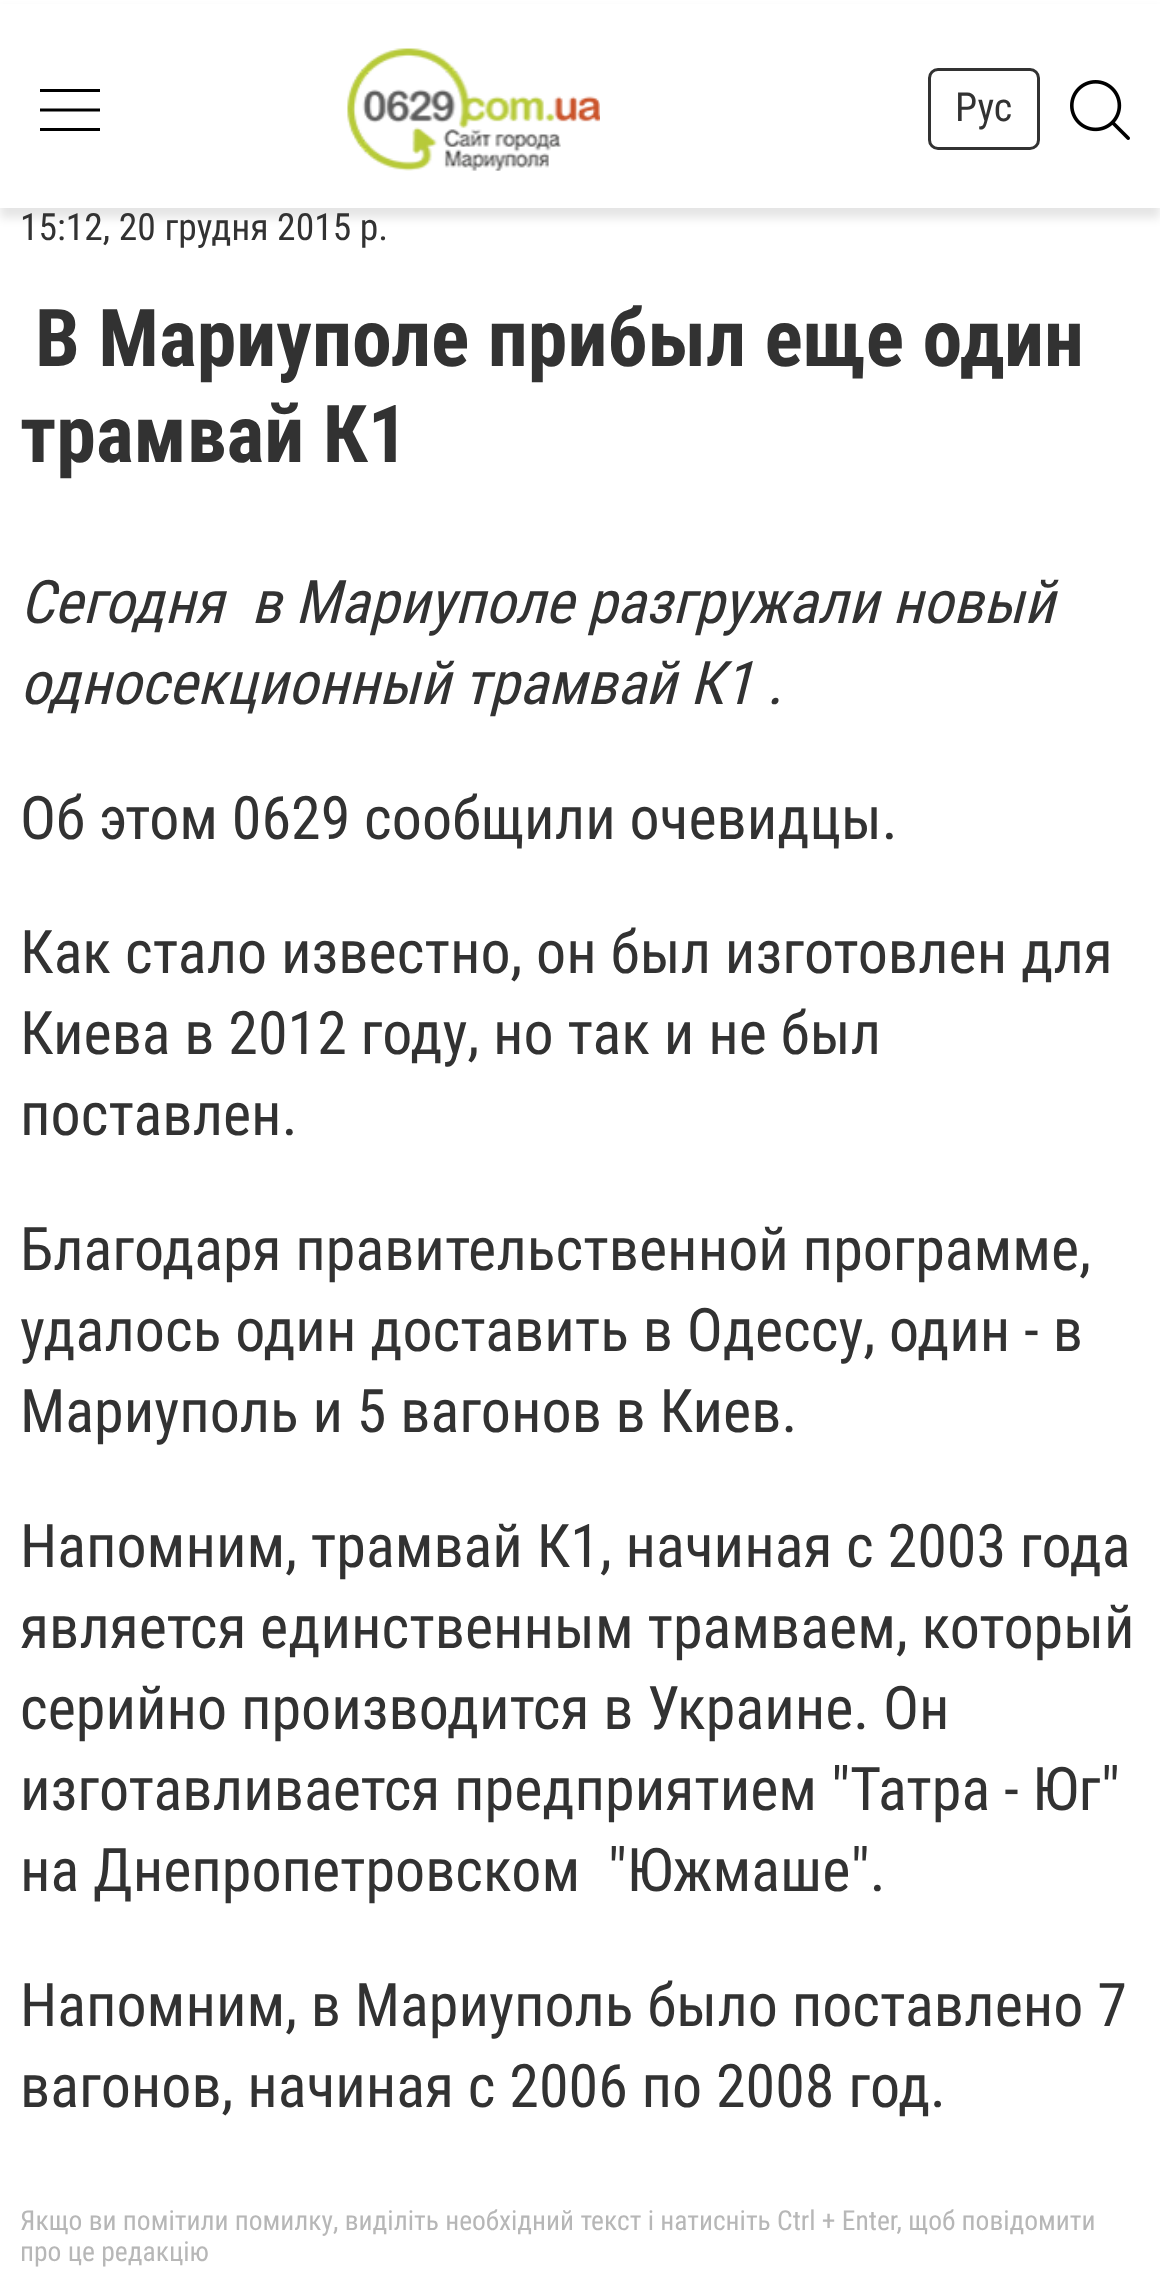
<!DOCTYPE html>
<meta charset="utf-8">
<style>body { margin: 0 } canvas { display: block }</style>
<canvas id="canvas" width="1160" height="2289"></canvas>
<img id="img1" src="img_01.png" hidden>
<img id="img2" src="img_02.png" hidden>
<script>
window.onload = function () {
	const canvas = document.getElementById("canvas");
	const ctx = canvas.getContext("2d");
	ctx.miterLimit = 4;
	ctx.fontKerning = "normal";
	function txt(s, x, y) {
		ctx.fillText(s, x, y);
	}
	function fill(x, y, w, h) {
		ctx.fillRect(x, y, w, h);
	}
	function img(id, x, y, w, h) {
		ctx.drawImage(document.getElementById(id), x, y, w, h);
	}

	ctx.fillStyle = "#FFFFFF";
	fill(0, 0, 1160, 2289);
	ctx.fillStyle = "rgba(0, 0, 0, 0.1)";
	ctx.filter = "blur(5px)";
	ctx.beginPath();
	ctx.rect(0, 10, 1160, 208);
	ctx.fill();
	ctx.filter = "none";
	ctx.fillStyle = "#FFFFFF";
	fill(0, 4, 1160, 204);
	ctx.fillStyle = "#000000";
	fill(40, 89, 60, 3);
	ctx.beginPath();
	ctx.moveTo(40, 110);
	ctx.lineTo(100, 110);
	ctx.strokeStyle = "#000000";
	ctx.lineWidth = 3;
	ctx.stroke();
	fill(40, 128, 60, 3);
	img("img1", 347, 48, 253, 123);
	ctx.beginPath();
	ctx.roundRect(929.5, 69.5, 109, 79, 8.5);
	ctx.strokeStyle = "#323232";
	ctx.stroke();
	img("img2", 1070, 80, 60, 60);
	ctx.font = "40px Roboto Condensed";
	ctx.fillStyle = "#323232";
	txt("Рус", 955, 121);
	ctx.font = "37.5px Roboto Condensed";
	txt("15:12, 20 грудня 2015 р.", 20, 240);
	ctx.font = "bold 80px Roboto Condensed";
	txt("В Мариуполе прибыл еще один", 35, 366);
	txt("трамвай К1", 20, 462);
	ctx.font = "italic 60px Roboto Condensed";
	txt("Сегодня  в Мариуполе разгружали новый", 20, 623);
	txt("односекционный трамвай К1 .", 20, 704);
	ctx.font = "60px Roboto Condensed";
	txt("Об этом 0629 сообщили очевидцы.", 20, 839);
	txt("Как стало известно, он был изготовлен для", 20, 973);
	txt("Киева в 2012 году, но так и не был", 20, 1054);
	txt("поставлен.", 20, 1135);
	txt("Благодаря правительственной программе,", 20, 1270);
	txt("удалось один доставить в Одессу, один - в", 20, 1351);
	txt("Мариуполь и 5 вагонов в Киев.", 20, 1432);
	txt("Напомним, трамвай К1, начиная с 2003 года", 20, 1567);
	txt("является единственным трамваем, который", 20, 1648);
	txt("серийно производится в Украине. Он", 20, 1729);
	txt("изготавливается предприятием \"Татра - Юг\"", 20, 1810);
	txt("на Днепропетровском  \"Южмаше\".", 20, 1891);
	txt("Напомним, в Мариуполь было поставлено 7", 20, 2026);
	txt("вагонов, начиная с 2006 по 2008 год.", 20, 2107);
	ctx.font = "27.5px Roboto Condensed";
	ctx.fillStyle = "#B7B7B7";
	txt("Якщо ви помітили помилку, виділіть необхідний текст і натисніть Ctrl + Enter, щоб повідомити", 20, 2230);
	txt("про це редакцію", 20, 2261);
};
</script>
